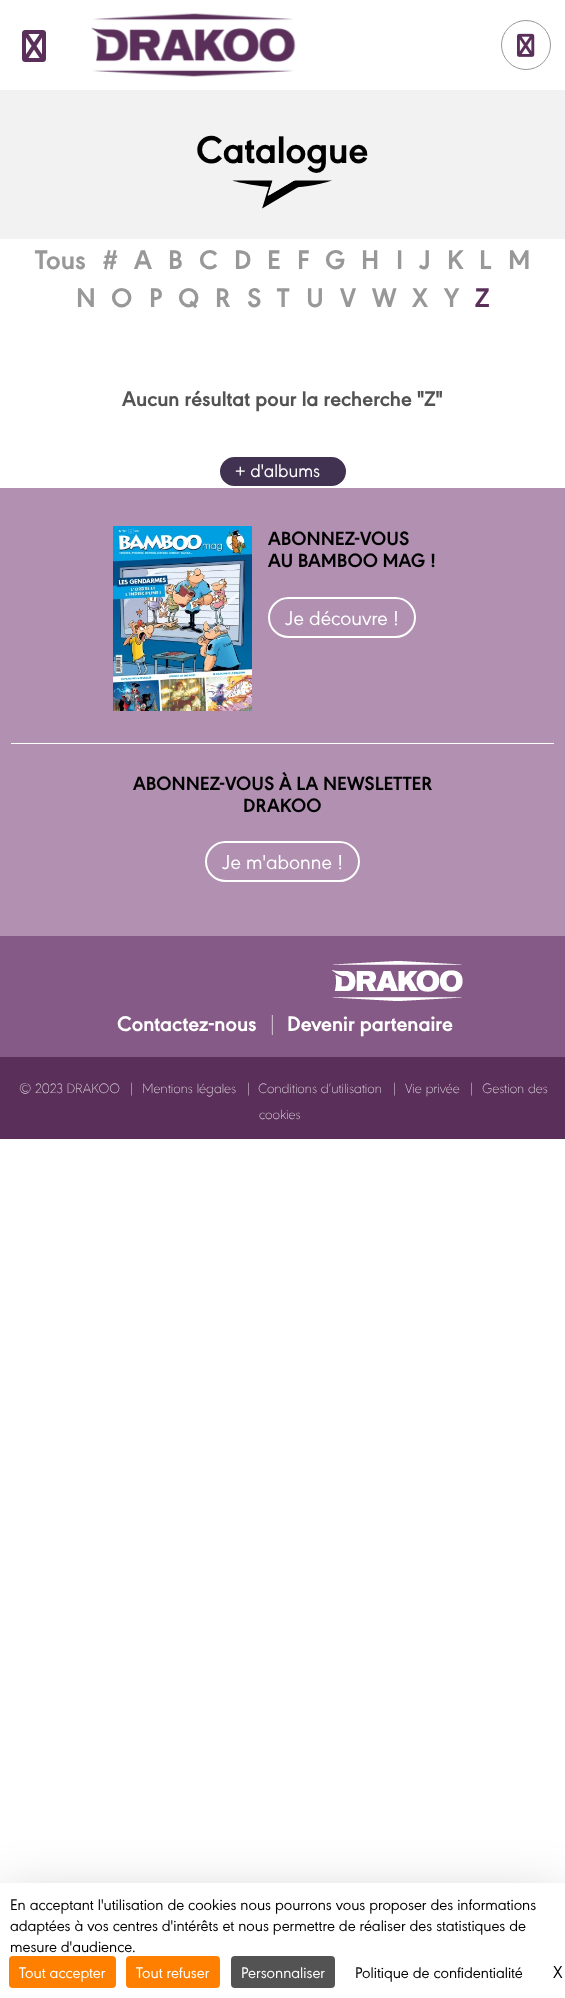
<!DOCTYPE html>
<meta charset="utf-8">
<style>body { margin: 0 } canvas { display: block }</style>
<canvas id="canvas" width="565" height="1998"></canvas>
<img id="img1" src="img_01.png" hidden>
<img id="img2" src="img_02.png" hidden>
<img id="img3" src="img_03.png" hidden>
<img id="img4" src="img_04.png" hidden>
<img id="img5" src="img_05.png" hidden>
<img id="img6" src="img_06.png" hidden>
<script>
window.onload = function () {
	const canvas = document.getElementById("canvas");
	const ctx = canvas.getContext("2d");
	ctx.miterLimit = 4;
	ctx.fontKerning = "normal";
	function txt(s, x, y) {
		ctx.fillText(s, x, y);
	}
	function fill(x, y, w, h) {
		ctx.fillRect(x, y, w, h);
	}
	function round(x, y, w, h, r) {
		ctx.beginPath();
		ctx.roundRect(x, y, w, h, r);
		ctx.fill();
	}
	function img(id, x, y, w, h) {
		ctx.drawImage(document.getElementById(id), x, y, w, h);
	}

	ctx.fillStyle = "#FFFFFF";
	fill(0, 0, 565, 1998);
	img("img1", 22, 30, 24, 32);
	img("img2", 91, 13, 205, 64);
	ctx.beginPath();
	ctx.arc(526, 45, 24.5, 0, Math.PI * 2);
	ctx.strokeStyle = "#989898";
	ctx.stroke();
	img("img3", 517, 33, 18, 24);
	ctx.fillStyle = "#F2F2F2";
	fill(0, 90, 565, 149);
	img("img4", 232, 180, 100, 29);
	ctx.fillStyle = "#423252";
	ctx.beginPath();
	ctx.roundRect(219, 456, 128, 31, 15.5);
	ctx.fill();
	ctx.strokeStyle = "#FFFFFF";
	ctx.lineWidth = 2;
	ctx.stroke();
	ctx.fillStyle = "#B190B1";
	fill(0, 488, 565, 448);
	img("img5", 113, 526, 139, 185);
	ctx.beginPath();
	ctx.roundRect(269, 598, 146, 39, 19.5);
	ctx.stroke();
	ctx.fillStyle = "#FFFFFF";
	fill(11, 743, 543, 1);
	ctx.beginPath();
	ctx.roundRect(206, 842, 153, 39, 19.5);
	ctx.stroke();
	ctx.fillStyle = "#865A86";
	fill(0, 936, 565, 121);
	img("img6", 332, 961, 131, 40);
	ctx.fillStyle = "#5A305A";
	fill(0, 1057, 565, 82);
	ctx.fillStyle = "rgba(0, 0, 0, 0.25)";
	ctx.filter = "blur(30px)";
	ctx.beginPath();
	ctx.rect(0, 1903, 565, 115);
	ctx.fill();
	ctx.filter = "none";
	ctx.fillStyle = "#FFFFFF";
	fill(0, 1883, 565, 115);
	ctx.fillStyle = "#FF8000";
	round(9, 1956, 107, 32, 4);
	round(126, 1956, 94, 32, 4);
	ctx.fillStyle = "#535353";
	round(231, 1956, 104, 32, 4);
	ctx.font = "bold 40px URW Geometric";
	ctx.fillStyle = "#000000";
	txt("Catalogue", 196, 163);
	ctx.font = "bold 28px URW Geometric";
	ctx.fillStyle = "#989898";
	txt("Tous", 35, 269);
	txt("#", 102, 269);
	txt("A", 134, 269);
	txt("B", 168, 269);
	txt("C", 199, 269);
	txt("D", 234, 269);
	txt("E", 267, 269);
	txt("F", 297, 269);
	txt("G", 325, 269);
	txt("H", 361, 269);
	txt("I", 396, 269);
	txt("J", 419, 269);
	txt("K", 447, 269);
	txt("L", 479, 269);
	txt("M", 508, 269);
	txt("N", 76, 307);
	txt("O", 111, 307);
	txt("P", 149, 307);
	txt("Q", 178, 307);
	txt("R", 215, 307);
	txt("S", 247, 307);
	txt("T", 277, 307);
	txt("U", 306, 307);
	txt("V", 340, 307);
	txt("W", 372, 307);
	txt("X", 412, 307);
	txt("Y", 444, 307);
	ctx.fillStyle = "#5A305A";
	txt("Z", 475, 307);
	ctx.font = "bold 22px URW Geometric";
	ctx.fillStyle = "#535353";
	txt("Aucun résultat pour la recherche \"Z\"", 122, 406);
	ctx.font = "19px URW Geometric";
	ctx.fillStyle = "#FFFFFF";
	txt("+ d'albums", 235, 477);
	ctx.font = "bold 20px URW Geometric";
	ctx.fillStyle = "#000000";
	txt("ABONNEZ-VOUS", 268, 545);
	txt("AU BAMBOO MAG !", 268, 567);
	ctx.font = "21px URW Geometric";
	ctx.fillStyle = "#FFFFFF";
	txt("Je découvre !", 285, 625);
	ctx.font = "bold 20px URW Geometric";
	ctx.fillStyle = "#000000";
	txt("ABONNEZ-VOUS À LA NEWSLETTER", 133, 790);
	txt("DRAKOO", 243, 812);
	ctx.font = "21px URW Geometric";
	ctx.fillStyle = "#FFFFFF";
	txt("Je m'abonne !", 222, 869);
	ctx.font = "bold 22px URW Geometric";
	txt("Contactez-nous", 117, 1031);
	ctx.font = "100 22px URW Geometric";
	txt("|", 267, 1031);
	ctx.font = "bold 22px URW Geometric";
	txt("Devenir partenaire", 287, 1031);
	ctx.font = "100 14px URW Geometric";
	txt("© 2023 DRAKOO", 19, 1093);
	txt("|", 128, 1093);
	txt("Mentions légales", 142, 1093);
	txt("|", 245, 1093);
	txt("Conditions d’utilisation", 258, 1093);
	txt("|", 391, 1093);
	txt("Vie privée", 405, 1093);
	txt("|", 468, 1093);
	txt("Gestion des", 482, 1093);
	txt("cookies", 259, 1119);
	ctx.font = "16px URW Geometric";
	ctx.fillStyle = "#000000";
	txt("En acceptant l'utilisation de cookies nous pourrons vous proposer des informations", 10, 1910);
	txt("adaptées à vos centres d'intérêts et nous permettre de réaliser des statistiques de", 10, 1931);
	txt("mesure d'audience.", 10, 1952);
	ctx.fillStyle = "#FFFFFF";
	txt("Tout accepter", 19, 1978);
	txt("Tout refuser", 136, 1978);
	txt("Personnaliser", 241, 1978);
	ctx.fillStyle = "#000000";
	txt("Politique de confidentialité", 355, 1978);
	ctx.font = "18px URW Geometric";
	txt("X", 553, 1978);
};
</script>
